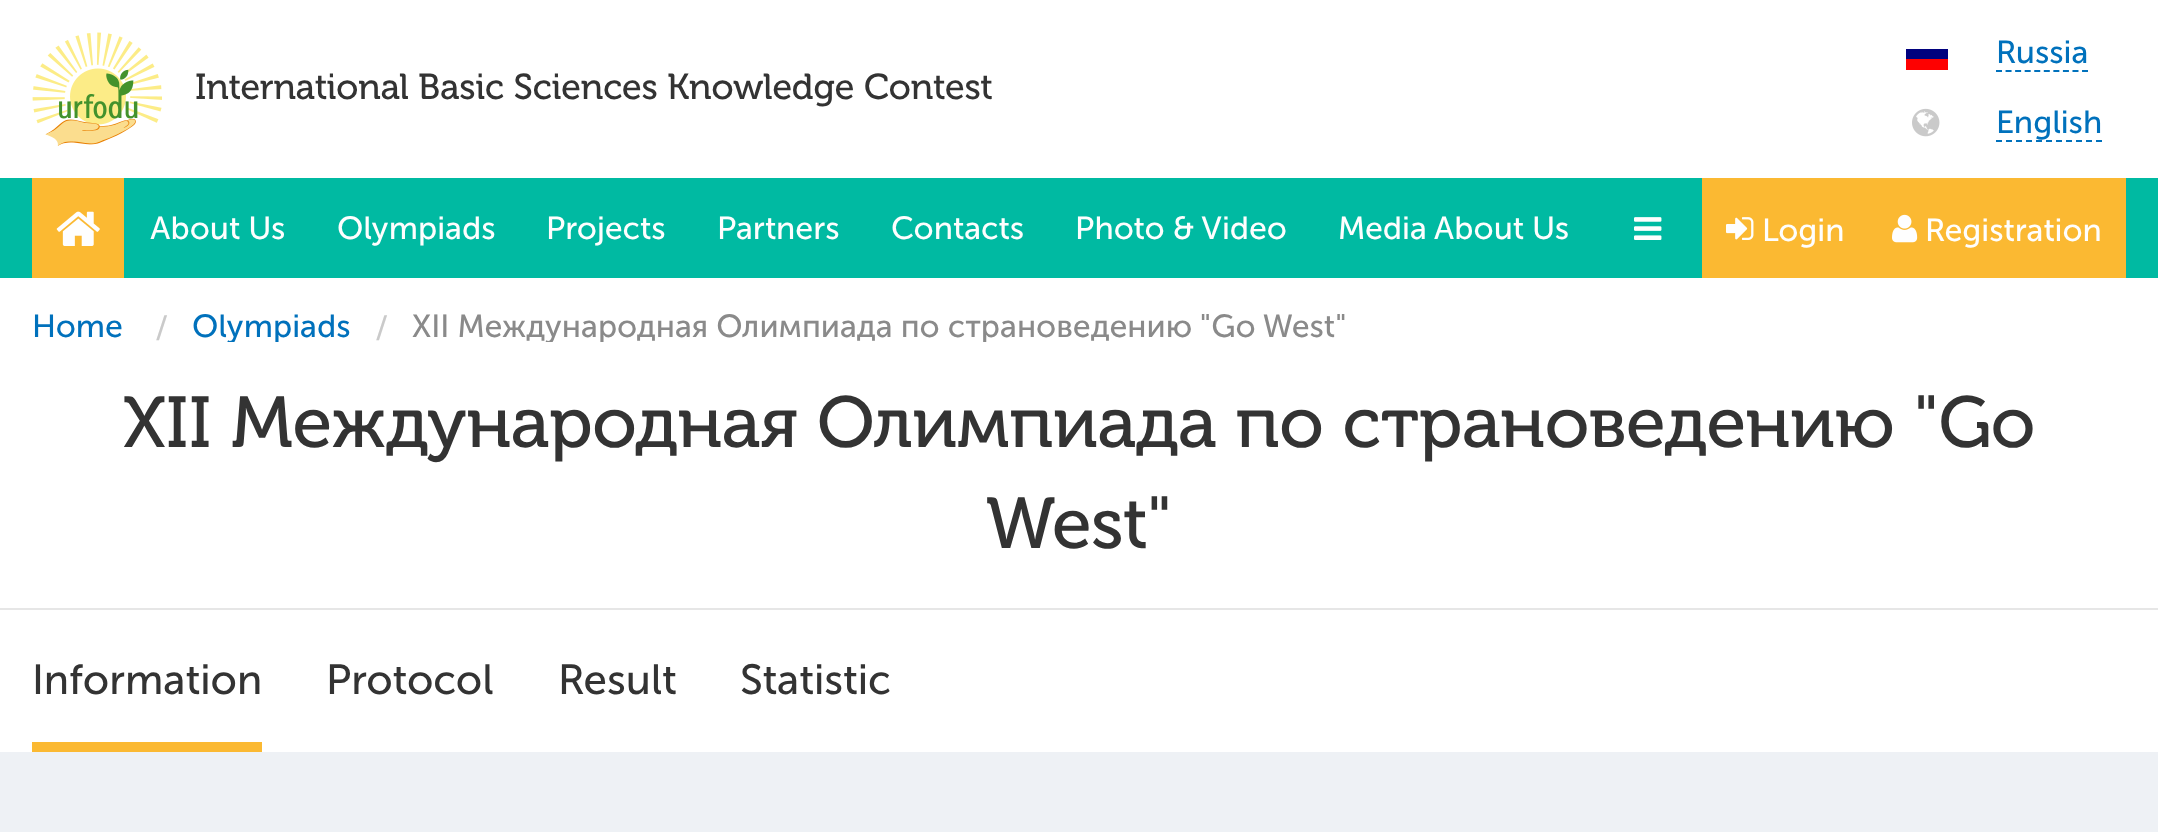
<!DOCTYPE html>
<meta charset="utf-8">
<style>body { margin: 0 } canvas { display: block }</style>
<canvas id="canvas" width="2158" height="832"></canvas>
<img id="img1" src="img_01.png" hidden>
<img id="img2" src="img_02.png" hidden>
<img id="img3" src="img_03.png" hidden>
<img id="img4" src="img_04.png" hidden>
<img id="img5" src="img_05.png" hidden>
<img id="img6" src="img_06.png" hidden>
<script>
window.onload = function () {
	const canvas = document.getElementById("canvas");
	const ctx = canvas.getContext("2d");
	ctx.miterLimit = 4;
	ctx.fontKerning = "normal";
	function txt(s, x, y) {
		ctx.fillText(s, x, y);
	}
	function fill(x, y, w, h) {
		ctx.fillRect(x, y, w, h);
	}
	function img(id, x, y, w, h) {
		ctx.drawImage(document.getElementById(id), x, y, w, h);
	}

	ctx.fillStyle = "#FFFFFF";
	fill(0, 0, 2158, 832);
	img("img1", 32, 32, 130, 114);
	ctx.fillStyle = "#01017E";
	fill(1906, 49, 42, 10);
	ctx.fillStyle = "#FE0101";
	fill(1906, 59, 42, 11);
	ctx.beginPath();
	ctx.moveTo(1996, 71);
	ctx.lineTo(2088, 71);
	ctx.strokeStyle = "#0071BC";
	ctx.lineWidth = 2;
	ctx.setLineDash([6, 3.56]);
	ctx.stroke();
	img("img2", 1912, 108, 28, 29);
	ctx.beginPath();
	ctx.moveTo(1996, 141);
	ctx.lineTo(2102, 141);
	ctx.setLineDash([6, 4]);
	ctx.stroke();
	ctx.fillStyle = "#00BAA2";
	fill(0, 178, 2158, 100);
	ctx.fillStyle = "#FBB932";
	fill(32, 178, 92, 100);
	img("img3", 56, 211, 44, 35);
	img("img4", 1634, 217, 28, 23);
	fill(1702, 178, 424, 100);
	img("img5", 1726, 217, 28, 23);
	img("img6", 1892, 214, 26, 29);
	ctx.fillStyle = "#E6E6E6";
	fill(0, 608, 2158, 2);
	ctx.fillStyle = "#FBB932";
	fill(32, 742, 230, 10);
	ctx.fillStyle = "#EEF1F5";
	fill(0, 752, 2158, 80);
	ctx.font = "36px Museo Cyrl";
	ctx.fillStyle = "#333333";
	txt("International Basic Sciences Knowledge Contest", 195, 99);
	ctx.font = "32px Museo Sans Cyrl";
	ctx.fillStyle = "#0071BC";
	txt("Russia", 1996, 63);
	txt("English", 1996, 133);
	ctx.fillStyle = "#FEFEFE";
	txt("About Us", 150, 239);
	txt("Olympiads", 337, 239);
	txt("Projects", 546, 239);
	txt("Partners", 717, 239);
	txt("Contacts", 891, 239);
	txt("Photo & Video", 1075, 239);
	txt("Media About Us", 1338, 239);
	txt("Login", 1762, 241);
	txt("Registration", 1925, 241);
	ctx.fillStyle = "#0071BC";
	txt("Home", 32, 337);
	ctx.fillStyle = "#CACACA";
	txt("/", 155, 339);
	ctx.save();
	ctx.beginPath();
	ctx.rect(32, 310, 2094, 32);
	ctx.clip();
	ctx.fillStyle = "#0071BC";
	txt("Olympiads", 192, 337);
	ctx.restore();
	txt("/", 375, 339);
	ctx.save();
	ctx.beginPath();
	ctx.rect(32, 310, 2094, 32);
	ctx.clip();
	ctx.fillStyle = "#8A8A8A";
	txt("XII Международная Олимпиада по страноведению \"Go West\"", 412, 337);
	ctx.restore();
	ctx.font = "72px Museo Cyrl";
	ctx.fillStyle = "#333333";
	txt("XII Международная Олимпиада по страноведению \"Go", 123, 447);
	txt("West\"", 986, 548);
	ctx.font = "42px Museo Sans Cyrl";
	txt("Information", 32, 694);
	txt("Protocol", 326, 694);
	txt("Result", 558, 694);
	txt("Statistic", 740, 694);
};
</script>
